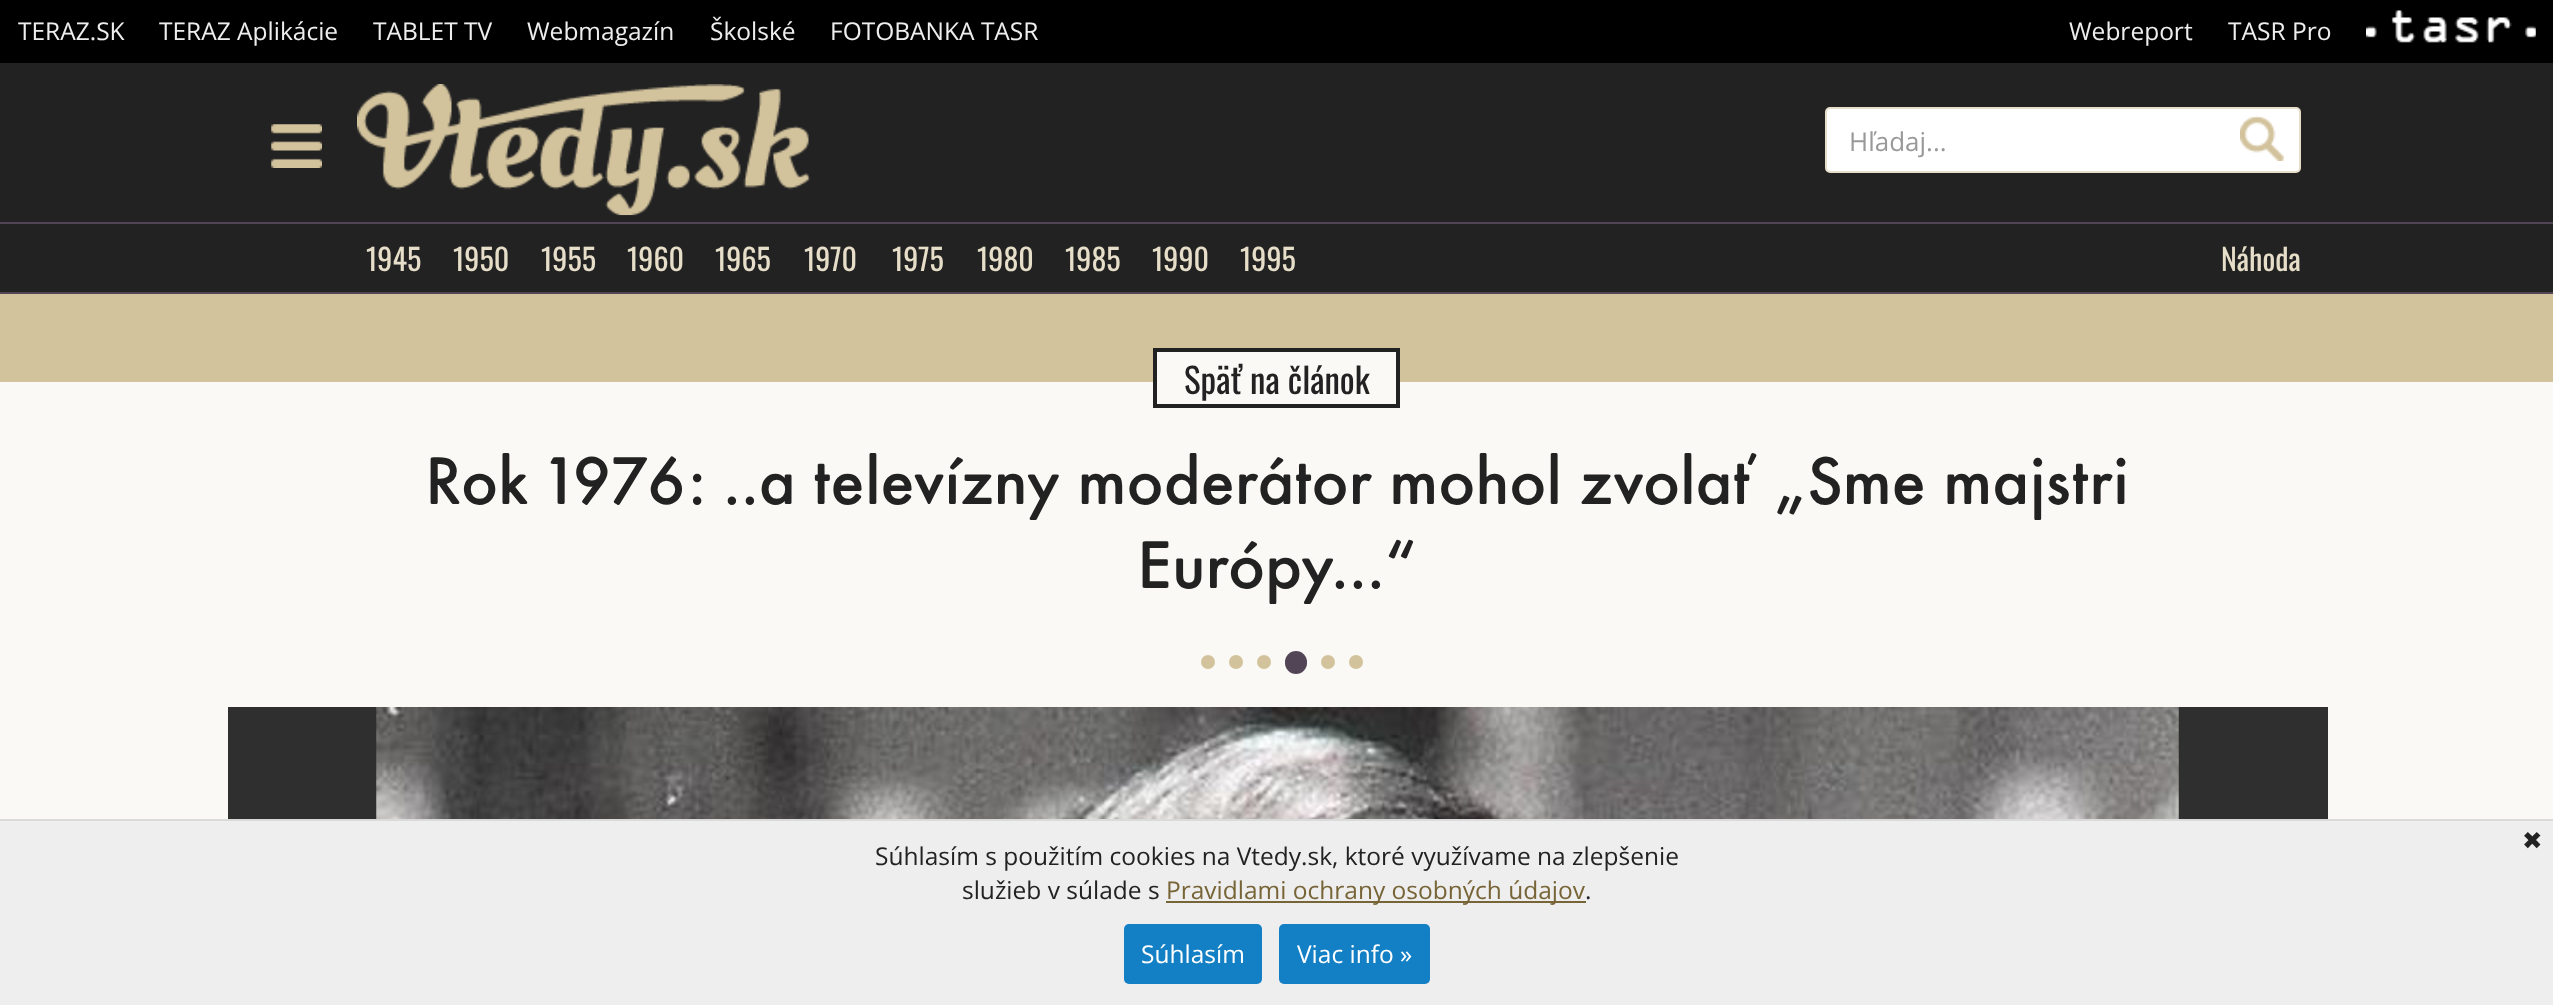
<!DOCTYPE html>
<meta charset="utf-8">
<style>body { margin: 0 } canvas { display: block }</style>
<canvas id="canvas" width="2553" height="1005"></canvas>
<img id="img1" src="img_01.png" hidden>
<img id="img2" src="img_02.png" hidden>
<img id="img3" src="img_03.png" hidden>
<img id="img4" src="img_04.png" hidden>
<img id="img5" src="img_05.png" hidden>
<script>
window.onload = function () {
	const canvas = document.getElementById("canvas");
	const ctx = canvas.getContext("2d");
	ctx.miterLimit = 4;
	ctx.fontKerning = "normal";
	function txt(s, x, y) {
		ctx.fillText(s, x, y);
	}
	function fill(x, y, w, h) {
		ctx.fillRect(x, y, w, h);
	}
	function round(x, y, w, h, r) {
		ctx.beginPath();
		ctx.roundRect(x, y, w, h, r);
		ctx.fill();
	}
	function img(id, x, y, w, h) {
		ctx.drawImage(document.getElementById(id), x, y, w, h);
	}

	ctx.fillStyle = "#D3C39D";
	fill(0, 0, 2553, 1005);
	ctx.fillStyle = "#222222";
	fill(0, 63, 2553, 229);
	ctx.fillStyle = "#000000";
	fill(0, 0, 2553, 63);
	img("img1", 2366, 10, 170, 33);
	ctx.fillStyle = "#524656";
	fill(0, 222, 2553, 2);
	img("img2", 271, 124, 51, 44);
	img("img3", 357, 84, 453, 132);
	ctx.fillStyle = "#FFFFFF";
	ctx.beginPath();
	ctx.roundRect(1826, 108, 474, 64, 4);
	ctx.fill();
	ctx.strokeStyle = "#E7DEC9";
	ctx.lineWidth = 2;
	ctx.stroke();
	img("img4", 2240, 115, 44, 46);
	ctx.fillStyle = "#524656";
	fill(0, 292, 2553, 2);
	ctx.fillStyle = "#FBF9F5";
	fill(0, 382, 2553, 437);
	fill(1157, 352, 239, 30);
	ctx.strokeStyle = "#222222";
	ctx.lineWidth = 4;
	ctx.strokeRect(1155, 350, 243, 56);
	ctx.fillStyle = "#D3C39D";
	ctx.beginPath();
	ctx.arc(1208, 662, 7, 0, Math.PI * 2);
	ctx.fill();
	ctx.beginPath();
	ctx.arc(1236, 662, 7, 0, Math.PI * 2);
	ctx.fill();
	ctx.beginPath();
	ctx.arc(1264, 662, 7, 0, Math.PI * 2);
	ctx.fill();
	ctx.fillStyle = "#524656";
	round(1285, 651, 22, 23, 11);
	ctx.fillStyle = "#D3C39D";
	ctx.beginPath();
	ctx.arc(1328, 662, 7, 0, Math.PI * 2);
	ctx.fill();
	ctx.beginPath();
	ctx.arc(1356, 662, 7, 0, Math.PI * 2);
	ctx.fill();
	ctx.fillStyle = "#2F2F2F";
	fill(228, 707, 2100, 112);
	img("img5", 376, 707, 1803, 112);
	ctx.fillStyle = "#EEEEEE";
	fill(0, 821, 2553, 184);
	ctx.fillStyle = "#DADADA";
	fill(0, 819, 2553, 2);
	ctx.fillStyle = "#776437";
	fill(1166, 901, 420, 2);
	ctx.fillStyle = "#137FC5";
	round(1124, 924, 138, 60, 5);
	round(1279, 924, 151, 60, 5);
	ctx.font = "24.5px Open Sans";
	ctx.fillStyle = "#EEEEEE";
	txt("TERAZ.SK", 18, 40);
	txt("TERAZ Aplikácie", 159, 40);
	txt("TABLET TV", 373, 40);
	txt("Webmagazín", 527, 40);
	txt("Školské", 710, 40);
	txt("FOTOBANKA TASR", 830, 40);
	txt("Webreport", 2069, 40);
	txt("TASR Pro", 2228, 40);
	ctx.font = "26px Open Sans";
	ctx.fillStyle = "#999999";
	txt("Hľadaj...", 1849, 151);
	ctx.font = "30px Oswald";
	ctx.fillStyle = "#E7DEC9";
	txt("1945", 366, 271);
	txt("1950", 453, 271);
	txt("1955", 541, 271);
	txt("1960", 627, 271);
	txt("1965", 715, 271);
	txt("1970", 804, 271);
	txt("1975", 892, 271);
	txt("1980", 977, 271);
	txt("1985", 1065, 271);
	txt("1990", 1152, 271);
	txt("1995", 1240, 271);
	txt("Náhoda", 2221, 271);
	ctx.font = "35px Oswald";
	ctx.fillStyle = "#222222";
	txt("Späť na článok", 1184, 394);
	ctx.wordSpacing = "1px";
	ctx.font = "500 70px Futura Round";
	txt("Rok 1976:", 425, 504);
	ctx.wordSpacing = "0px";
	txt("..a televízny moderátor mohol zvolať „Sme majstri", 723, 504);
	txt("Európy...“", 1137, 588);
	ctx.font = "24.5px DejaVu Sans";
	txt("✖", 2522, 849);
	ctx.font = "24.5px Open Sans";
	txt("Súhlasím s použitím cookies na Vtedy.sk, ktoré využívame na zlepšenie", 875, 865);
	txt("služieb v súlade s", 962, 899);
	ctx.fillStyle = "#776437";
	txt("Pravidlami ochrany osobných údajov", 1166, 899);
	ctx.fillStyle = "#222222";
	txt(".", 1585, 899);
	ctx.fillStyle = "#FFFFFF";
	txt("Súhlasím", 1141, 963);
	txt("Viac info »", 1297, 963);
};
</script>
